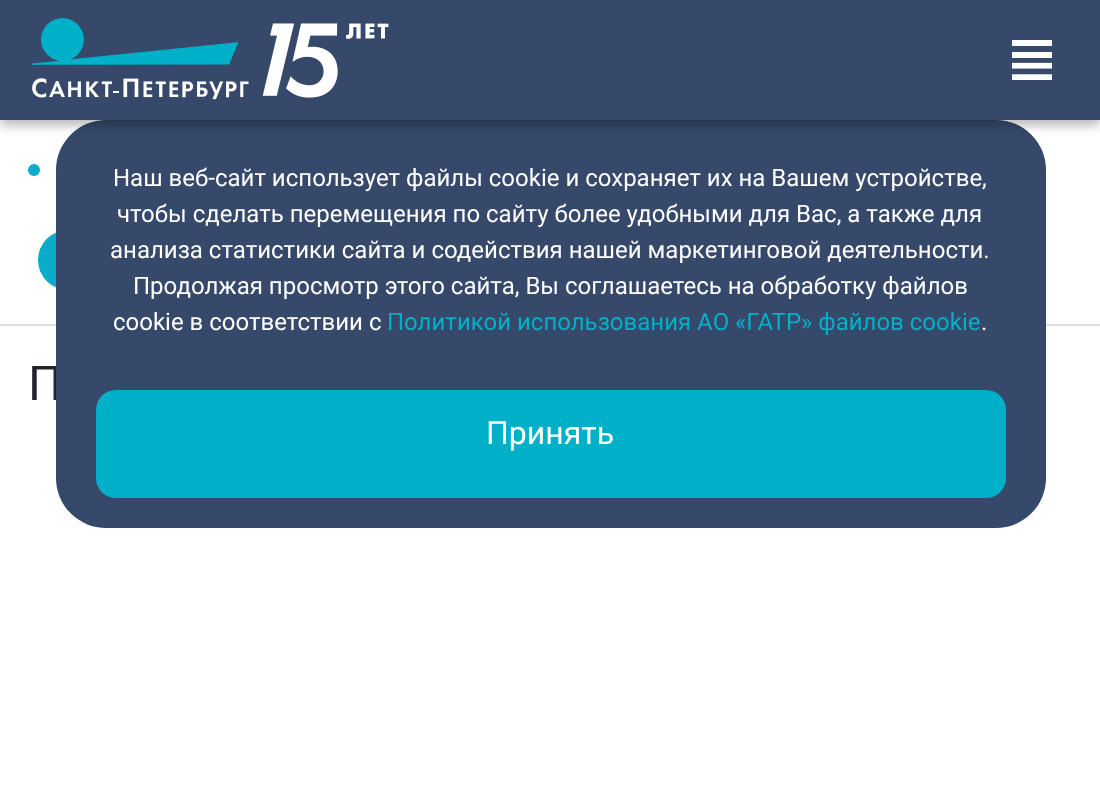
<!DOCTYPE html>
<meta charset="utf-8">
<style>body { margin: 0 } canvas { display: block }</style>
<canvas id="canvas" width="1100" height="812"></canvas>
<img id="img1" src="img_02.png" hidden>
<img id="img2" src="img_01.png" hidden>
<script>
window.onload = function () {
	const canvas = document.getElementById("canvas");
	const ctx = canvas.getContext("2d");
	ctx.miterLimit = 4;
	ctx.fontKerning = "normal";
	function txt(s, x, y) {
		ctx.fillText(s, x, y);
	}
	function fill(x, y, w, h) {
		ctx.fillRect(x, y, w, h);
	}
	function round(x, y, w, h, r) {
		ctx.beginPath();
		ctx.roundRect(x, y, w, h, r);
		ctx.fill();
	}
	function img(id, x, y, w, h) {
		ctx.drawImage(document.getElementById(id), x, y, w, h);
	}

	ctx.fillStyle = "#FFFFFF";
	fill(0, 0, 1100, 812);
	ctx.fillStyle = "#DFDFDF";
	fill(0, 324, 1100, 2);
	ctx.fillStyle = "#0AACCA";
	ctx.beginPath();
	ctx.arc(34, 170, 6, 0, Math.PI * 2);
	ctx.fill();
	ctx.beginPath();
	ctx.arc(68, 260, 30, 0, Math.PI * 2);
	ctx.fill();
	ctx.font = "48px Roboto";
	ctx.fillStyle = "#212529";
	txt("П", 28, 400);
	ctx.fillStyle = "#36496A";
	round(56, 120, 990, 408, 50);
	ctx.fillStyle = "rgba(0, 0, 0, 0.25)";
	ctx.filter = "blur(5px)";
	ctx.beginPath();
	ctx.rect(0, 6, 1100, 120);
	ctx.fill();
	ctx.filter = "none";
	ctx.fillStyle = "#36496A";
	fill(0, 0, 1100, 120);
	img("img1", 1012, 40, 40, 40);
	img("img2", 31, 18, 358, 82);
	ctx.font = "24px Roboto";
	ctx.fillStyle = "#FFFFFF";
	txt("Наш веб-сайт использует файлы cookie и сохраняет их на Вашем устройстве,", 113, 186);
	txt("чтобы сделать перемещения по сайту более удобными для Вас, а также для", 117, 222);
	txt("анализа статистики сайта и содействия нашей маркетинговой деятельности.", 110, 258);
	txt("Продолжая просмотр этого сайта, Вы соглашаетесь на обработку файлов", 133, 294);
	txt("cookie в соответствии с", 113, 330);
	ctx.fillStyle = "#00B0C8";
	txt("Политикой использования АО «ГАТР» файлов cookie", 387, 330);
	ctx.fillStyle = "#FFFFFF";
	txt(".", 981, 330);
	ctx.fillStyle = "#00B0C8";
	round(96, 390, 910, 108, 20);
	ctx.font = "32px Roboto";
	ctx.fillStyle = "#FFFFFF";
	txt("Принять", 486, 444);
};
</script>
